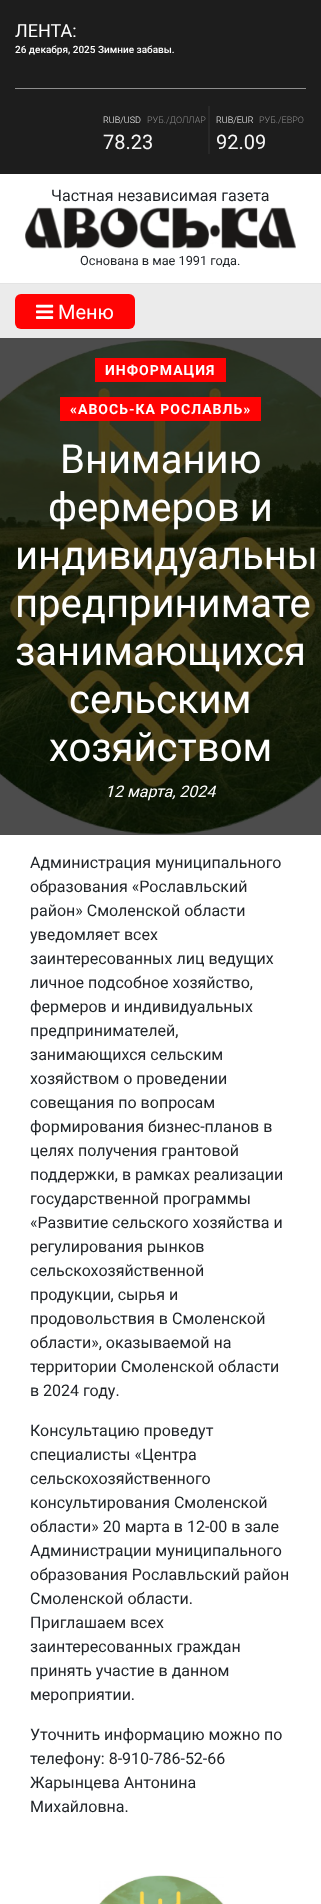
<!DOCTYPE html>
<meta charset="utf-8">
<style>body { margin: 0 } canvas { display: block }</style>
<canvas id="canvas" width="321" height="1904"></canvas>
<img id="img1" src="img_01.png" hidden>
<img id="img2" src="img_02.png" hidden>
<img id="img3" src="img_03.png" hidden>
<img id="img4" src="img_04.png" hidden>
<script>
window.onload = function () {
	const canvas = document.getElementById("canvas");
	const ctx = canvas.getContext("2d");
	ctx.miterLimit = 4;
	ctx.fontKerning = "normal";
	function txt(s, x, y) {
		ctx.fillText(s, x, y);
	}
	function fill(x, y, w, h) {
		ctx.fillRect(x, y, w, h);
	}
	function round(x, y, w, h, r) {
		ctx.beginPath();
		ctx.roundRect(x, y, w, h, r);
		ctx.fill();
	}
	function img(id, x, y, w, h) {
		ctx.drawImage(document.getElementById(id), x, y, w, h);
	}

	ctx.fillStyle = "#FFFFFF";
	fill(0, 0, 321, 1904);
	ctx.fillStyle = "#1D1D1D";
	fill(0, 0, 321, 174);
	ctx.fillStyle = "#8E8E8E";
	fill(15, 88, 291, 1);
	ctx.fillStyle = "#282828";
	fill(208, 106, 2, 48);
	img("img1", 25, 207, 271, 42);
	ctx.fillStyle = "#EBEBEB";
	fill(0, 284, 321, 54);
	ctx.fillStyle = "#E4E4E4";
	fill(0, 283, 321, 1);
	ctx.fillStyle = "#FF0303";
	round(15, 294, 120, 35, 6);
	img("img2", 36, 304, 18, 15);
	img("img3", 0, 338, 321, 497);
	fill(95, 358, 131, 24);
	fill(60, 397, 201, 24);
	img("img4", 99, 1875, 125, 29);
	ctx.font = "18px Roboto";
	ctx.fillStyle = "#FFFFFF";
	txt("ЛЕНТА:", 15, 37);
	ctx.font = "500 10px Roboto";
	txt("26 декабря, 2025 Зимние забавы.", 15, 53);
	ctx.font = "300 9px Roboto";
	ctx.fillStyle = "#F6F6F6";
	txt("RUB/USD", 103, 123);
	ctx.fillStyle = "#8A8A8A";
	txt("РУБ./ДОЛЛАР", 147, 123);
	ctx.font = "20px Roboto";
	ctx.fillStyle = "#F6F6F6";
	txt("78.23", 103, 149);
	ctx.font = "300 9px Roboto";
	txt("RUB/EUR", 216, 123);
	ctx.fillStyle = "#8A8A8A";
	txt("РУБ./ЕВРО", 259, 123);
	ctx.font = "20px Roboto";
	ctx.fillStyle = "#F6F6F6";
	txt("92.09", 216, 149);
	ctx.font = "16px Roboto";
	ctx.fillStyle = "#212529";
	txt("Частная независимая газета", 51, 201);
	ctx.font = "12.75px Roboto";
	txt("Основана в мае 1991 года.", 80, 265);
	ctx.font = "20px Roboto";
	ctx.fillStyle = "#FFFFFF";
	txt("Mеню", 58, 319);
	ctx.letterSpacing = "1px";
	ctx.font = "bold 14px Roboto";
	txt("ИНФОРМАЦИЯ", 105, 375);
	txt("«АВОСЬ-КА РОСЛАВЛЬ»", 70, 414);
	ctx.letterSpacing = "0px";
	ctx.font = "40px Roboto";
	txt("Вниманию", 60, 473);
	txt("фермеров и", 48, 521);
	txt("индивидуальны", 15, 569);
	txt("предпринимате", 15, 617);
	txt("занимающихся", 15, 665);
	txt("сельским", 69, 713);
	txt("хозяйством", 49, 761);
	ctx.font = "italic 16px Roboto";
	txt("12 марта, 2024", 105, 797);
	ctx.font = "16px Roboto";
	ctx.fillStyle = "#212529";
	txt("Администрация муниципального", 30, 868);
	txt("образования «Рославльский", 30, 892);
	txt("район» Смоленской области", 30, 916);
	txt("уведомляет всех", 30, 940);
	txt("заинтересованных лиц ведущих", 30, 964);
	txt("личное подсобное хозяйство,", 30, 988);
	txt("фермеров и индивидуальных", 30, 1012);
	txt("предпринимателей,", 30, 1036);
	txt("занимающихся сельским", 30, 1060);
	txt("хозяйством о проведении", 30, 1084);
	txt("совещания по вопросам", 30, 1108);
	txt("формирования бизнес-планов в", 30, 1132);
	txt("целях получения грантовой", 30, 1156);
	txt("поддержки, в рамках реализации", 30, 1180);
	txt("государственной программы", 30, 1204);
	txt("«Развитие сельского хозяйства и", 30, 1228);
	txt("регулирования рынков", 30, 1252);
	txt("сельскохозяйственной", 30, 1276);
	txt("продукции, сырья и", 30, 1300);
	txt("продовольствия в Смоленской", 30, 1324);
	txt("области», оказываемой на", 30, 1348);
	txt("территории Смоленской области", 30, 1372);
	txt("в 2024 году.", 30, 1396);
	txt("Консультацию проведут", 30, 1436);
	txt("специалисты «Центра", 30, 1460);
	txt("сельскохозяйственного", 30, 1484);
	txt("консультирования Смоленской", 30, 1508);
	txt("области» 20 марта в 12-00 в зале", 30, 1532);
	txt("Администрации муниципального", 30, 1556);
	txt("образования Рославльский район", 30, 1580);
	txt("Смоленской области.", 30, 1604);
	txt("Приглашаем всех", 30, 1628);
	txt("заинтересованных граждан", 30, 1652);
	txt("принять участие в данном", 30, 1676);
	txt("мероприятии.", 30, 1700);
	txt("Уточнить информацию можно по", 30, 1740);
	txt("телефону: 8-910-786-52-66", 30, 1764);
	txt("Жарынцева Антонина", 30, 1788);
	txt("Михайловна.", 30, 1812);
};
</script>
